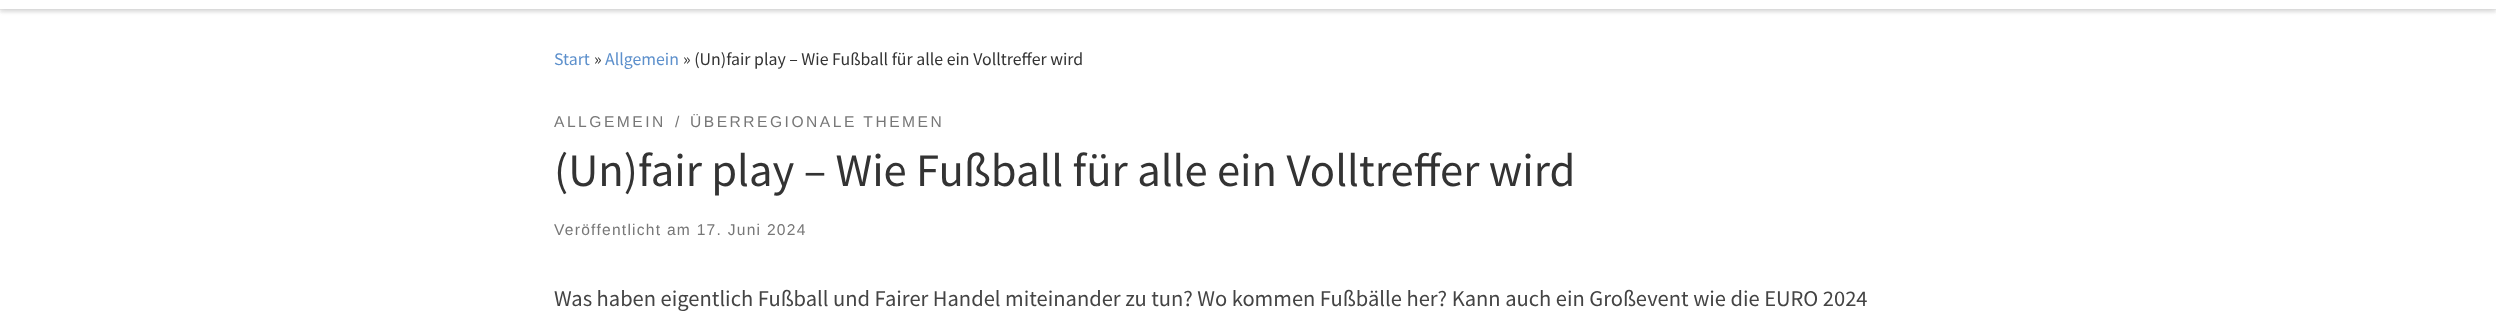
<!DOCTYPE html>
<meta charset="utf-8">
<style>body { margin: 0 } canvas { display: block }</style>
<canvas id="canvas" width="2496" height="321"></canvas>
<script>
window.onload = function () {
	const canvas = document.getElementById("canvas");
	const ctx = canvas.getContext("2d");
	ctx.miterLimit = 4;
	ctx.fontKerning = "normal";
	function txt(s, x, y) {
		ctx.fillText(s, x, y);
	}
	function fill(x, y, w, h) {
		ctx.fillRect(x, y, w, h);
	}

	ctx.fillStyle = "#FFFFFF";
	fill(0, 0, 2496, 321);
	ctx.fillStyle = "rgba(102, 102, 102, 0.08)";
	ctx.filter = "blur(1px)";
	ctx.beginPath();
	ctx.rect(0, -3, 2496, 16);
	ctx.fill();
	ctx.filter = "none";
	ctx.fillStyle = "#EFEFEF";
	fill(0, 9, 2496, 1);
	ctx.fillStyle = "rgba(0, 0, 0, 0.2)";
	ctx.filter = "blur(3px)";
	ctx.beginPath();
	ctx.rect(0, -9, 2496, 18);
	ctx.fill();
	ctx.filter = "none";
	ctx.fillStyle = "#FFFFFF";
	fill(0, 0, 2496, 9);
	ctx.font = "17.8px Source Sans Pro";
	ctx.fillStyle = "#5D90CC";
	txt("Start", 554, 65);
	ctx.fillStyle = "#333333";
	txt("»", 594, 65);
	ctx.fillStyle = "#5D90CC";
	txt("Allgemein", 605, 65);
	ctx.fillStyle = "#333333";
	txt("» (Un)fair play – Wie Fußball für alle ein Volltreffer wird", 683, 65);
	ctx.letterSpacing = "2.5px";
	ctx.font = "15.6px Liberation Sans";
	ctx.fillStyle = "#777777";
	txt("ALLGEMEIN", 554, 127);
	txt("/", 675, 127);
	txt("ÜBERREGIONALE THEMEN", 690, 127);
	ctx.letterSpacing = "0px";
	ctx.font = "46.7px Source Sans Pro";
	ctx.fillStyle = "#333333";
	txt("(Un)fair play – Wie Fußball für alle ein Volltreffer wird", 554, 186);
	ctx.letterSpacing = "1.25px";
	ctx.font = "15.6px Liberation Sans";
	ctx.fillStyle = "#777777";
	txt("Veröffentlicht am 17. Juni 2024", 554, 235);
	ctx.letterSpacing = "0px";
	ctx.font = "22.5px Source Sans Pro";
	ctx.fillStyle = "#444444";
	txt("Was haben eigentlich Fußball und Fairer Handel miteinander zu tun? Wo kommen Fußbälle her? Kann auch ein Großevent wie die EURO 2024", 554, 306);
};
</script>
